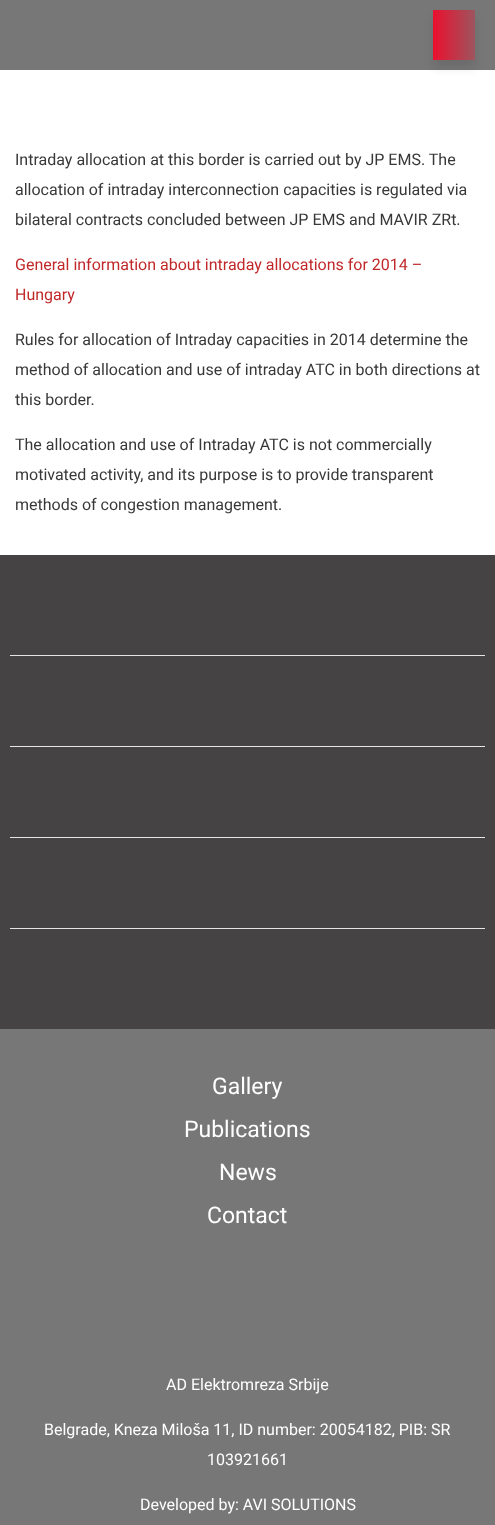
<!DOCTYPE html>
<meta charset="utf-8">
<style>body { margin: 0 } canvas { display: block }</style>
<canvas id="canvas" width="495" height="1525"></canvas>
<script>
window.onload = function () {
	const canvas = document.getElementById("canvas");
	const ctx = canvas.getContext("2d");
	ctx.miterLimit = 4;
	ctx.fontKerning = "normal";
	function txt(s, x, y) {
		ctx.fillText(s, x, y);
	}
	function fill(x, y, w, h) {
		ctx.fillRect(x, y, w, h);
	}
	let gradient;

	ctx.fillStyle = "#FFFFFF";
	fill(0, 0, 495, 1525);
	ctx.fillStyle = "#777777";
	fill(0, 0, 495, 70);
	ctx.fillStyle = "rgba(12, 12, 12, 0.1)";
	ctx.filter = "blur(5px)";
	ctx.beginPath();
	ctx.rect(433, 18, 42, 50);
	ctx.fill();
	ctx.filter = "none";
	gradient = ctx.createLinearGradient(433, 35, 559, 35);
	gradient.addColorStop(0, "#EB102E");
	gradient.addColorStop(0.5, "#777777");
	gradient.addColorStop(1, "#EB102E");
	ctx.fillStyle = gradient;
	fill(433, 10, 42, 50);
	ctx.fillStyle = "#454344";
	fill(0, 555, 495, 474);
	ctx.fillStyle = "#E5E5E5";
	fill(10, 655, 475, 1);
	fill(10, 746, 475, 1);
	fill(10, 837, 475, 1);
	fill(10, 928, 475, 1);
	ctx.fillStyle = "#777777";
	fill(0, 1029, 495, 496);
	ctx.font = "16px Roboto";
	ctx.fillStyle = "#383838";
	txt("Intraday allocation at this border is carried out by JP EMS. The", 15, 165);
	txt("allocation of intraday interconnection capacities is regulated via", 15, 195);
	txt("bilateral contracts concluded between JP EMS and MAVIR ZRt.", 15, 225);
	ctx.fillStyle = "#C1282A";
	txt("General information about intraday allocations for 2014 –", 15, 270);
	txt("Hungary", 15, 300);
	ctx.fillStyle = "#383838";
	txt("Rules for allocation of Intraday capacities in 2014 determine the", 15, 345);
	txt("method of allocation and use of intraday ATC in both directions at", 15, 375);
	txt("this border.", 15, 405);
	txt("The allocation and use of Intraday ATC is not commercially", 15, 450);
	txt("motivated activity, and its purpose is to provide transparent", 15, 480);
	txt("methods of congestion management.", 15, 510);
	ctx.font = "23px Roboto";
	ctx.fillStyle = "#FFFFFF";
	txt("Gallery", 212, 1094);
	txt("Publications", 184, 1137);
	txt("News", 219, 1180);
	txt("Contact", 207, 1223);
	ctx.font = "16px Roboto";
	txt("AD Elektromreza Srbije", 166, 1390);
	txt("Belgrade, Kneza Miloša 11, ID number: 20054182, PIB: SR", 44, 1435);
	txt("103921661", 207, 1465);
	txt("Developed by: AVI SOLUTIONS", 140, 1510);
};
</script>
